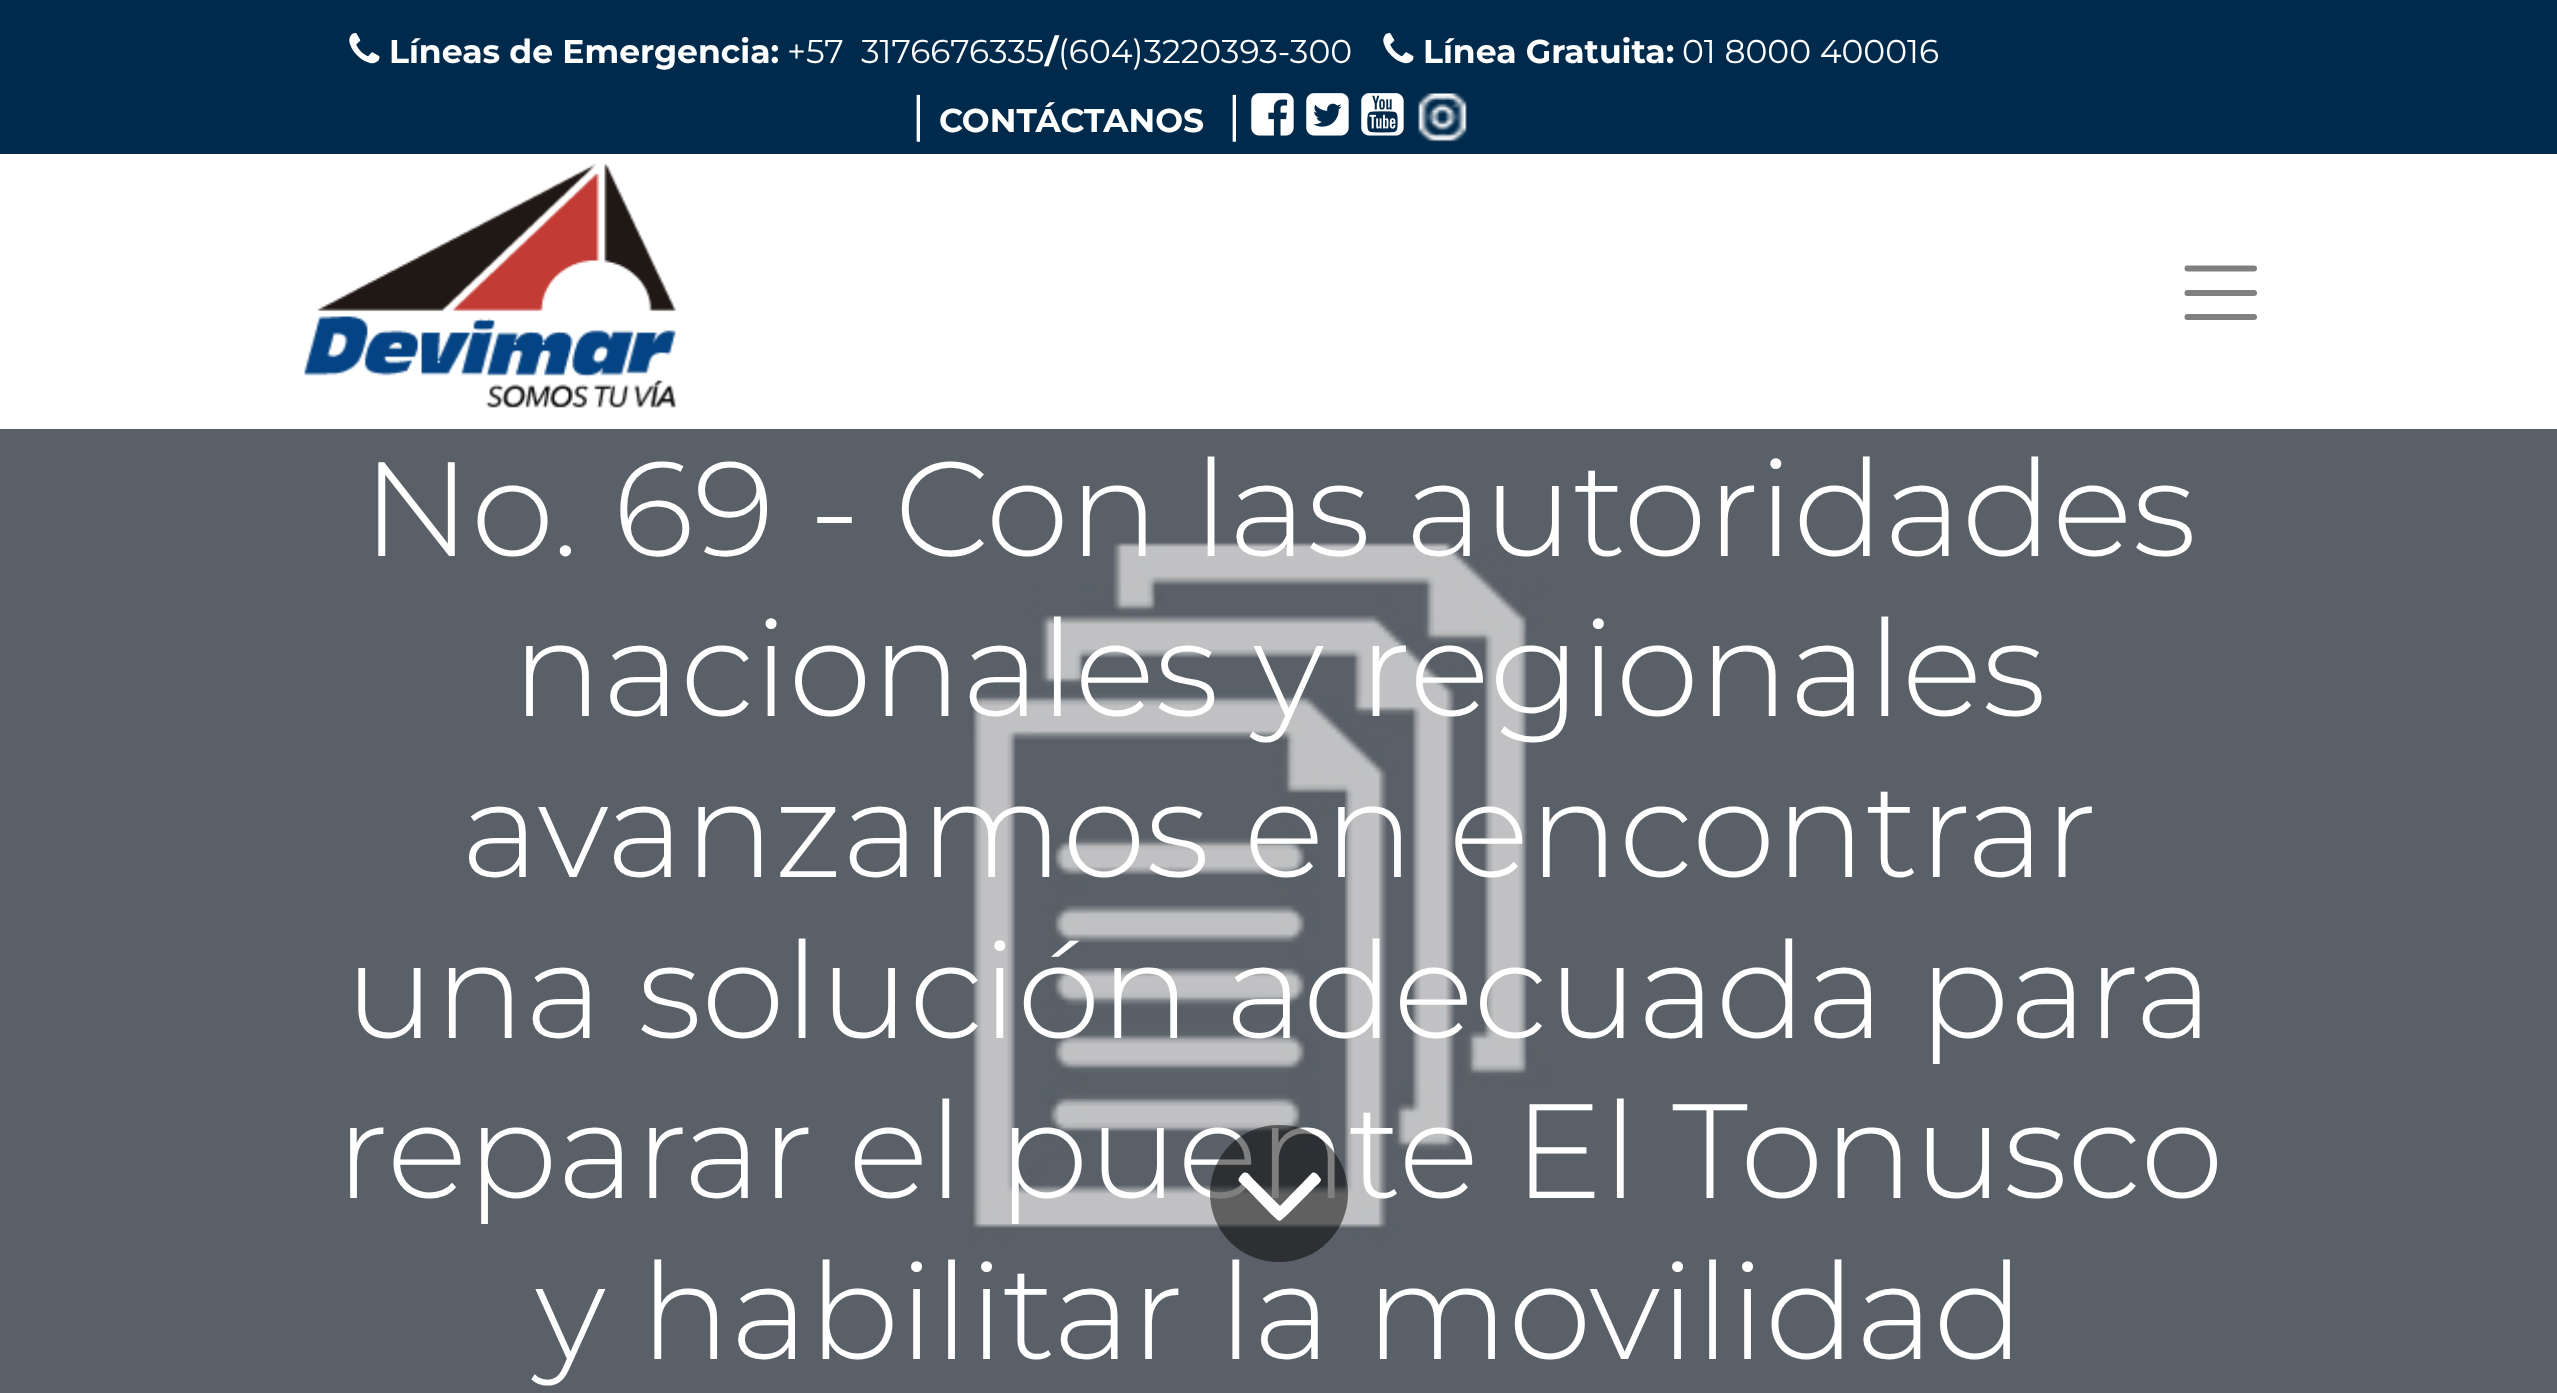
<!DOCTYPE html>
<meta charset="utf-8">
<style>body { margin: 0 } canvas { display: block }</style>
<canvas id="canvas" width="2557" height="1393"></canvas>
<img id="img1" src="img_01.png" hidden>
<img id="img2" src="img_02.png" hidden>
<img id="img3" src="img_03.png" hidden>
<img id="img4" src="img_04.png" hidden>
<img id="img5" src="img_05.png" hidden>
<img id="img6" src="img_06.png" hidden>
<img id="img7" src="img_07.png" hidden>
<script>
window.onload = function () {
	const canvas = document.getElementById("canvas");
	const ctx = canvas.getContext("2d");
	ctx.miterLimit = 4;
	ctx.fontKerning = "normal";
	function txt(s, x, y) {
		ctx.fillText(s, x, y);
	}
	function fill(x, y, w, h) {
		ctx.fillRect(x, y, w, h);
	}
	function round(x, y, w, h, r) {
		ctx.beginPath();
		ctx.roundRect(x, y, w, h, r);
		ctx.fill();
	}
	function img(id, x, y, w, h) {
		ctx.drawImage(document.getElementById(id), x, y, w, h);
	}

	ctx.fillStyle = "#FFFFFF";
	fill(0, 0, 2557, 1393);
	ctx.fillStyle = "#002A4B";
	fill(0, 0, 2557, 154);
	img("img1", 349, 33, 31, 31);
	img("img1", 1383, 33, 31, 31);
	img("img2", 1251, 93, 43, 43);
	img("img3", 1306, 93, 43, 43);
	img("img4", 1361, 93, 43, 43);
	img("img5", 1418, 93, 49, 49);
	img("img6", 304, 163, 372, 245);
	ctx.beginPath();
	ctx.moveTo(2187.5, 268.5);
	ctx.lineTo(2254, 268.5);
	ctx.moveTo(2187.5, 293);
	ctx.lineTo(2254, 293);
	ctx.moveTo(2187.5, 317);
	ctx.lineTo(2254, 317);
	ctx.strokeStyle = "#808080";
	ctx.lineWidth = 6;
	ctx.lineCap = "round";
	ctx.stroke();
	img("img7", 0, 429, 2557, 964);
	ctx.font = "bold 33px Montserrat";
	ctx.fillStyle = "#FFFFFF";
	txt("Líneas de Emergencia:", 389, 63);
	ctx.font = "33px Montserrat";
	txt("+57  3176676335", 787, 63);
	ctx.font = "bold 33px Montserrat";
	txt("/", 1045, 63);
	ctx.font = "33px Montserrat";
	txt("(604)3220393-300", 1058, 63);
	ctx.font = "bold 33px Montserrat";
	txt("Línea Gratuita:", 1423, 63);
	ctx.font = "33px Montserrat";
	txt("01 8000 400016", 1682, 63);
	ctx.font = "50px Montserrat";
	txt("|", 911, 132);
	ctx.font = "bold 33px Montserrat";
	txt("CONTÁCTANOS", 939, 132);
	ctx.font = "50px Montserrat";
	txt("|", 1227, 132);
	ctx.font = "300 134px Montserrat";
	txt("No. 69 - Con las autoridades", 362, 556);
	txt("nacionales y regionales", 512, 716);
	txt("avanzamos en encontrar", 461, 877);
	txt("una solución adecuada para", 345, 1038);
	txt("reparar el puente El Tonusco", 336, 1198);
	txt("y habilitar la movilidad", 535, 1359);
	ctx.fillStyle = "rgba(0, 0, 0, 0.5)";
	round(1210, 1125, 138, 137, 68.5);
	ctx.fillStyle = "#FFFFFF";
	ctx.beginPath();
	ctx.moveTo(1320, 1178);
	ctx.bezierCurveTo(1324, 1181, 1314, 1187, 1314, 1188);
	ctx.lineTo(1288, 1214);
	ctx.bezierCurveTo(1278, 1223, 1281, 1223, 1271, 1214);
	ctx.lineTo(1246, 1188);
	ctx.bezierCurveTo(1238, 1180, 1236, 1181, 1242, 1174);
	ctx.bezierCurveTo(1247, 1170, 1249, 1175, 1253, 1179);
	ctx.lineTo(1280, 1206);
	ctx.lineTo(1312, 1173);
	ctx.bezierCurveTo(1315, 1171, 1319, 1176, 1320, 1178);
	ctx.closePath();
	ctx.fill();
};
</script>
